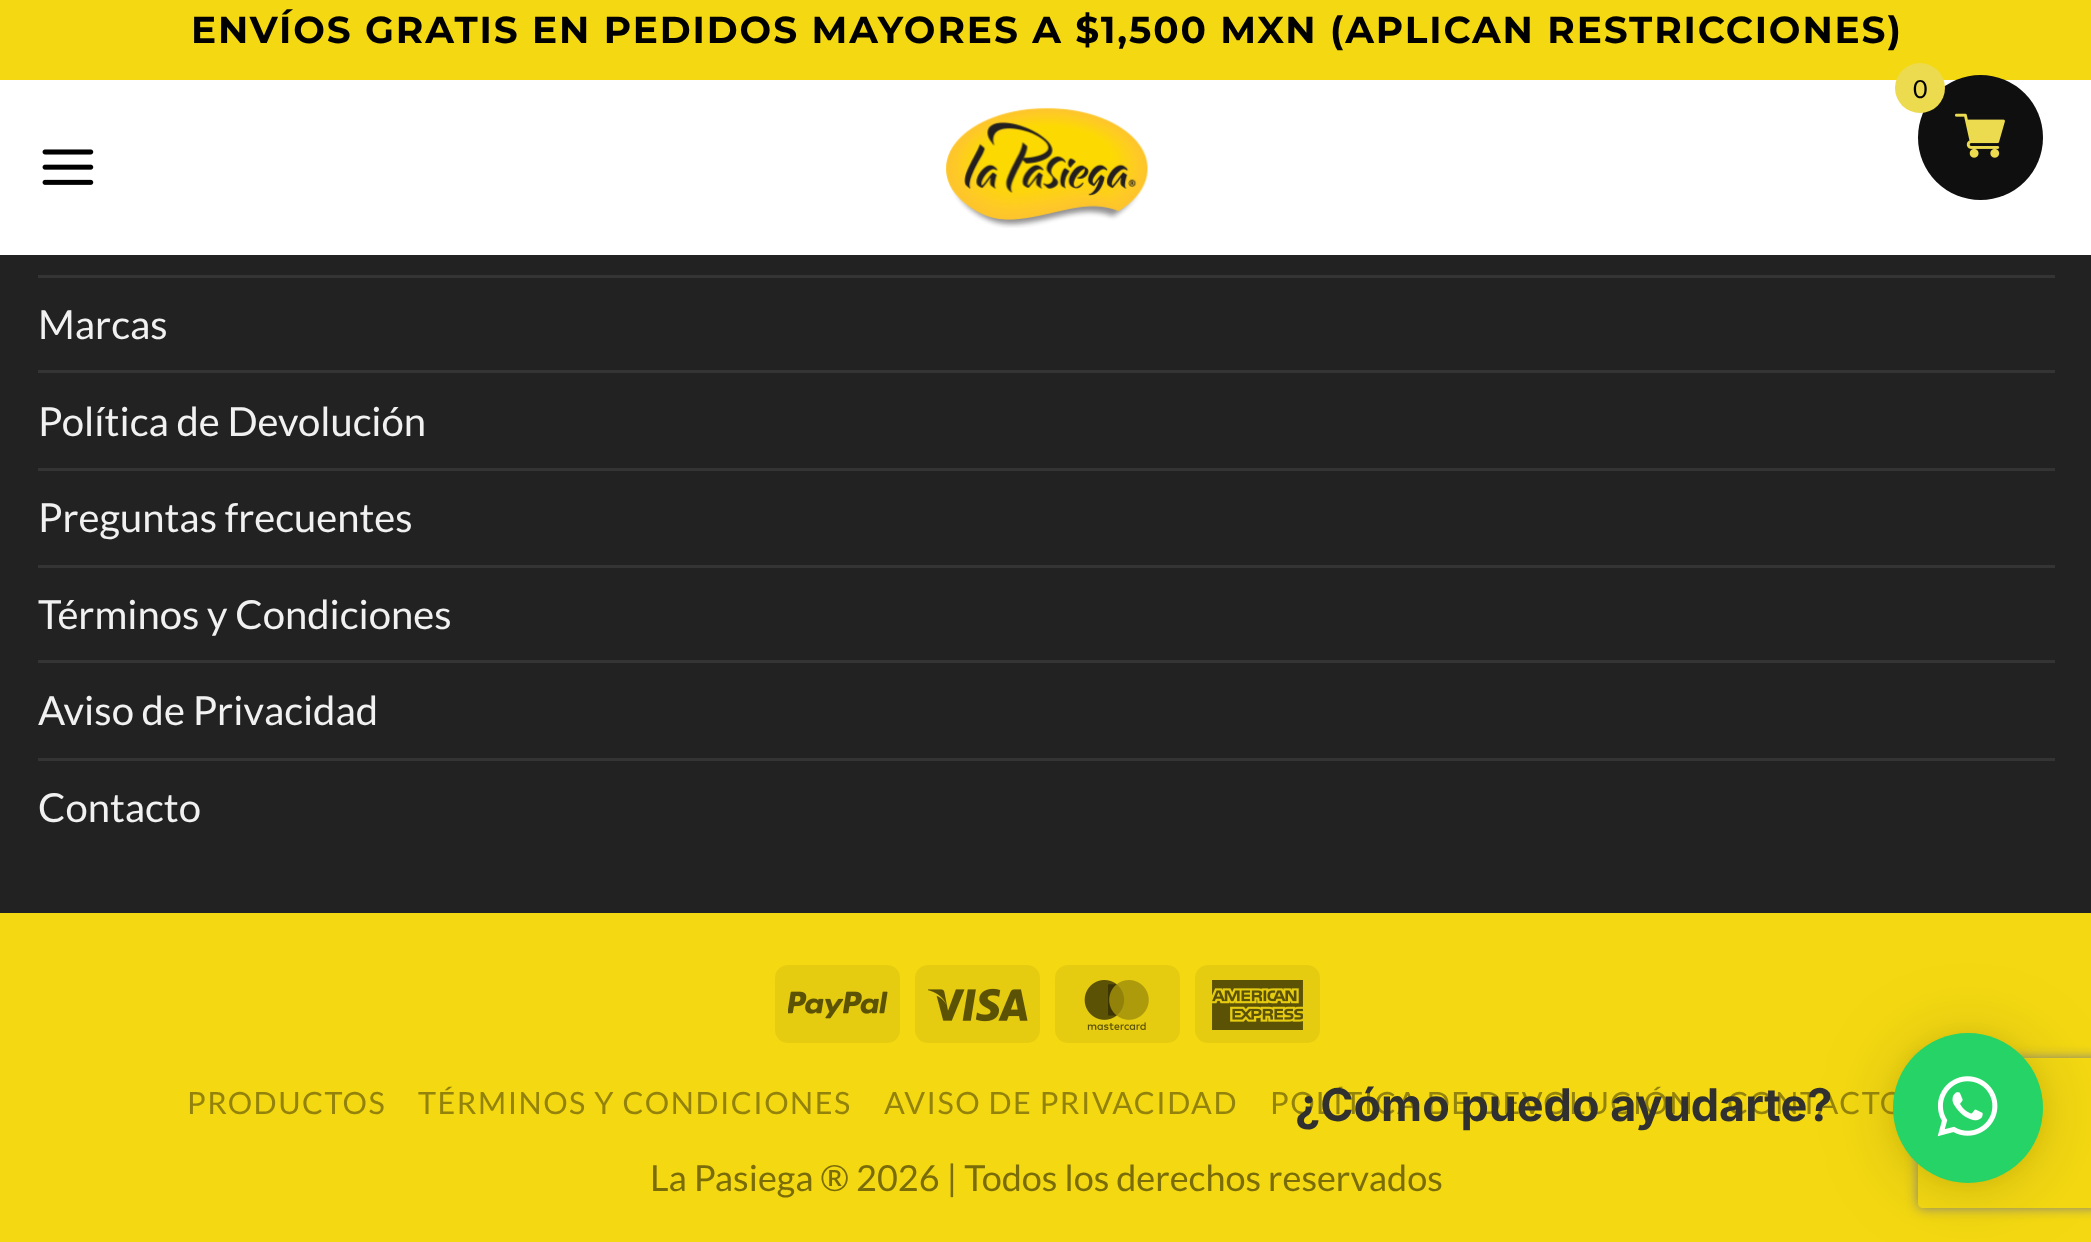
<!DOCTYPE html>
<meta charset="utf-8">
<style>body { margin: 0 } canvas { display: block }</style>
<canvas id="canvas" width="2091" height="1242"></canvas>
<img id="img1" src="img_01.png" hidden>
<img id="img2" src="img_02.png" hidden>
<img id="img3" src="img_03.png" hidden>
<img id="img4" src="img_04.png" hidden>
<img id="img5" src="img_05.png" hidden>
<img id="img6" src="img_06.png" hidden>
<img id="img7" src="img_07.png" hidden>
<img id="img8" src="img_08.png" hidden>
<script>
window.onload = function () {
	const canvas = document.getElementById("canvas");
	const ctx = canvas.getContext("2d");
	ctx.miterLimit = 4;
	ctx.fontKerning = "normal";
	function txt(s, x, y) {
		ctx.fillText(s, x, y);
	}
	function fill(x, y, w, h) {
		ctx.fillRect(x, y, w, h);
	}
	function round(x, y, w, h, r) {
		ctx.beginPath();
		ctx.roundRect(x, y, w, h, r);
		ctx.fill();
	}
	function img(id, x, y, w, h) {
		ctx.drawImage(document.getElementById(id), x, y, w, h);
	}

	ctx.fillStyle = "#222222";
	fill(0, 0, 2091, 1242);
	ctx.fillStyle = "#F4D912";
	fill(0, 0, 2091, 80);
	ctx.fillStyle = "#FFFFFF";
	fill(0, 80, 2091, 175);
	img("img1", 42, 149, 52, 36);
	img("img2", 946, 107, 202, 121);
	ctx.fillStyle = "#343434";
	fill(38, 275, 2017, 3);
	fill(38, 370, 2017, 3);
	fill(38, 468, 2017, 3);
	fill(38, 565, 2017, 3);
	fill(38, 660, 2017, 3);
	fill(38, 758, 2017, 3);
	ctx.fillStyle = "#F4D912";
	fill(0, 913, 2091, 329);
	ctx.fillStyle = "#E5CC11";
	round(775, 965, 125, 78, 13);
	img("img3", 788, 991, 100, 28);
	round(915, 965, 125, 78, 13);
	img("img4", 928, 988, 100, 34);
	round(1055, 965, 125, 78, 13);
	img("img5", 1084, 980, 65, 50);
	round(1195, 965, 125, 78, 13);
	img("img6", 1212, 980, 91, 50);
	ctx.fillStyle = "#0F0F0F";
	ctx.beginPath();
	ctx.arc(1980.5, 137.5, 62.5, 0, Math.PI * 2);
	ctx.fill();
	ctx.fillStyle = "#ECDA4F";
	ctx.beginPath();
	ctx.arc(1920, 88, 25, 0, Math.PI * 2);
	ctx.fill();
	img("img7", 1955, 113, 50, 45);
	ctx.fillStyle = "rgba(0, 0, 0, 0.16)";
	ctx.filter = "blur(40px)";
	ctx.beginPath();
	ctx.roundRect(1893, 1038, 150, 150, 75);
	ctx.fill();
	ctx.filter = "none";
	ctx.fillStyle = "rgba(0, 0, 0, 0.06)";
	ctx.filter = "blur(7.5px)";
	ctx.beginPath();
	ctx.roundRect(1893, 1035, 150, 150, 75);
	ctx.fill();
	ctx.filter = "none";
	ctx.save();
	ctx.beginPath();
	ctx.moveTo(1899, 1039);
	ctx.lineTo(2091, 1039);
	ctx.lineTo(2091, 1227);
	ctx.lineTo(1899, 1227);
	ctx.closePath();
	ctx.moveTo(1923, 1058);
	ctx.lineTo(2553, 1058);
	ctx.bezierCurveTo(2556, 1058, 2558, 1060, 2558, 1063);
	ctx.lineTo(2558, 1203);
	ctx.bezierCurveTo(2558, 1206, 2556, 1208, 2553, 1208);
	ctx.lineTo(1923, 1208);
	ctx.bezierCurveTo(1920, 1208, 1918, 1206, 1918, 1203);
	ctx.lineTo(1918, 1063);
	ctx.bezierCurveTo(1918, 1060, 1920, 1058, 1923, 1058);
	ctx.closePath();
	ctx.clip("evenodd");
	ctx.fillStyle = "#808080";
	ctx.filter = "blur(6px)";
	ctx.beginPath();
	ctx.roundRect(1918, 1058, 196, 150, 5);
	ctx.fill();
	ctx.filter = "none";
	ctx.restore();
	ctx.letterSpacing = "1.88px";
	ctx.font = "bold 37.5px Montserrat";
	ctx.fillStyle = "#000000";
	txt("ENVÍOS GRATIS EN PEDIDOS MAYORES A $1,500 MXN (APLICAN RESTRICCIONES)", 191, 43);
	ctx.letterSpacing = "0px";
	ctx.font = "40px Lato";
	ctx.fillStyle = "#F1F1F1";
	txt("Marcas", 38, 339);
	txt("Política de Devolución", 38, 436);
	txt("Preguntas frecuentes", 38, 532);
	txt("Términos y Condiciones", 38, 629);
	txt("Aviso de Privacidad", 38, 725);
	txt("Contacto", 38, 822);
	ctx.letterSpacing = "1.5px";
	ctx.font = "30.6px Lato";
	ctx.fillStyle = "#93820B";
	txt("PRODUCTOS", 187, 1114);
	txt("TÉRMINOS Y CONDICIONES", 418, 1114);
	txt("AVISO DE PRIVACIDAD", 884, 1114);
	txt("POLÍTICA DE DEVOLUCIÓN", 1270, 1114);
	txt("CONTACTO", 1727, 1114);
	ctx.letterSpacing = "0px";
	ctx.font = "36px Lato";
	ctx.fillStyle = "#7A6D09";
	txt("La Pasiega ® 2026 | Todos los derechos reservados", 650, 1191);
	ctx.font = "25px Lato";
	ctx.fillStyle = "#000000";
	txt("0", 1913, 98);
	ctx.fillStyle = "#25D366";
	ctx.beginPath();
	ctx.arc(1968, 1108, 75, 0, Math.PI * 2);
	ctx.fill();
	ctx.font = "bold 45px Inter";
	ctx.fillStyle = "#303030";
	txt("¿Cómo puedo ayudarte?", 1295, 1121);
	img("img8", 1937, 1076, 61, 61);
};
</script>
